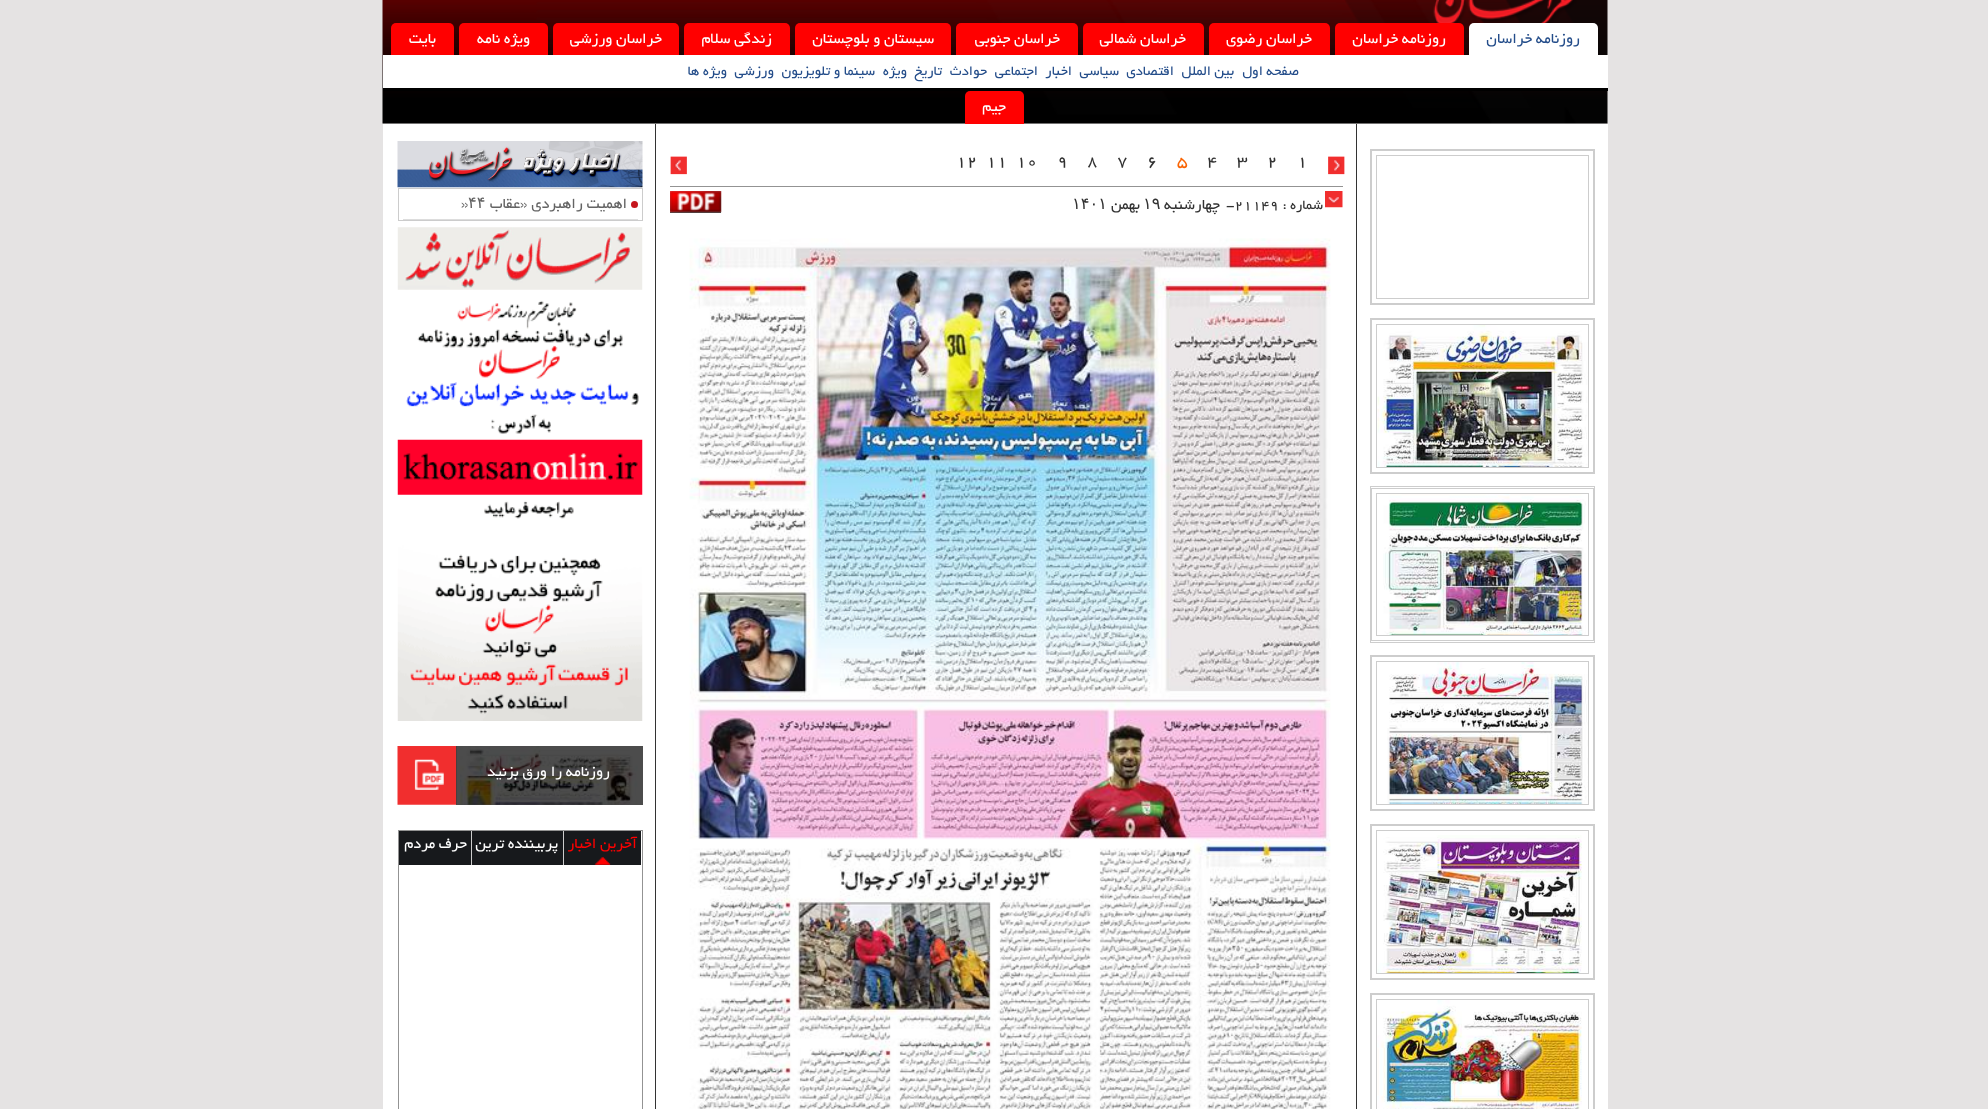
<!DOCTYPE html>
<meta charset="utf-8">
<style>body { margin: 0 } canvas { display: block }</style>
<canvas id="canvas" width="1988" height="1109"></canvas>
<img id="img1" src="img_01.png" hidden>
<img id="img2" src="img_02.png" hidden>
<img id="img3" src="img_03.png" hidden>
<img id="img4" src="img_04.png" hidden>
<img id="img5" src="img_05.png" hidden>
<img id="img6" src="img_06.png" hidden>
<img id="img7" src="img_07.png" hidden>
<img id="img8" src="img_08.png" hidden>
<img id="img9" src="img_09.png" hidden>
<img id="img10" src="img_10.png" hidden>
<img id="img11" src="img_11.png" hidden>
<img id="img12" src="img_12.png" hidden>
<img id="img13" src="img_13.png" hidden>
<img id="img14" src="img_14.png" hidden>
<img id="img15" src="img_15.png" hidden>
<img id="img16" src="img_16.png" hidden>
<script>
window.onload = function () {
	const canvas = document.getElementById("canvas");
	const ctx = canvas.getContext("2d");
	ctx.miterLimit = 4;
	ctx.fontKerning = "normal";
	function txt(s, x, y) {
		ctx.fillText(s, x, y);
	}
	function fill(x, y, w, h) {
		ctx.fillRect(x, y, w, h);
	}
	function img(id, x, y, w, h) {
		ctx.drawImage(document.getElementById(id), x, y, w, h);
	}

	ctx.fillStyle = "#E5E3E3";
	fill(0, 0, 1988, 1109);
	img("img1", 382, 0, 1226, 124);
	ctx.fillStyle = "#FF0000";
	ctx.beginPath();
	ctx.roundRect(684, 23, 106, 32, [5, 5, 0, 0]);
	ctx.fill();
	ctx.beginPath();
	ctx.roundRect(553, 23, 126, 32, [5, 5, 0, 0]);
	ctx.fill();
	ctx.beginPath();
	ctx.roundRect(459, 23, 89, 32, [5, 5, 0, 0]);
	ctx.fill();
	ctx.fillStyle = "#FFFFFF";
	fill(383, 55, 1225, 33);
	ctx.beginPath();
	ctx.roundRect(1469, 23, 129, 33, [5, 5, 0, 0]);
	ctx.fill();
	ctx.fillStyle = "#000000";
	fill(383, 88, 1225, 3);
	ctx.fillStyle = "#FF0000";
	ctx.beginPath();
	ctx.roundRect(1335, 23, 129, 32, [5, 5, 0, 0]);
	ctx.fill();
	ctx.beginPath();
	ctx.roundRect(1209, 23, 121, 32, [5, 5, 0, 0]);
	ctx.fill();
	ctx.beginPath();
	ctx.roundRect(1083, 23, 121, 32, [5, 5, 0, 0]);
	ctx.fill();
	ctx.beginPath();
	ctx.roundRect(956, 23, 122, 32, [5, 5, 0, 0]);
	ctx.fill();
	ctx.beginPath();
	ctx.roundRect(795, 23, 156, 32, [5, 5, 0, 0]);
	ctx.fill();
	ctx.beginPath();
	ctx.roundRect(391, 23, 63, 32, [5, 5, 0, 0]);
	ctx.fill();
	ctx.beginPath();
	ctx.roundRect(965, 91, 59, 33, [5, 5, 0, 0]);
	ctx.fill();
	ctx.fillStyle = "#FFFFFF";
	fill(383, 124, 1225, 985);
	ctx.strokeStyle = "#CDCDCD";
	ctx.strokeRect(1370.5, 149.5, 224, 155);
	ctx.strokeRect(1376.5, 155.5, 212, 143);
	ctx.strokeRect(1371.5, 150.5, 222, 153);
	ctx.strokeRect(1370.5, 318.5, 224, 155);
	img("img2", 1377, 325, 211, 142);
	ctx.strokeRect(1376.5, 324.5, 212, 143);
	ctx.strokeRect(1371.5, 319.5, 222, 153);
	ctx.strokeRect(1370.5, 486.5, 224, 156);
	img("img3", 1383, 494, 203, 141);
	ctx.strokeRect(1376.5, 493.5, 212, 142);
	ctx.strokeRect(1371.5, 488.5, 222, 152);
	ctx.strokeRect(1370.5, 655.5, 224, 155);
	img("img4", 1387, 662, 201, 142);
	ctx.strokeRect(1376.5, 661.5, 212, 143);
	ctx.strokeRect(1371.5, 656.5, 222, 153);
	ctx.strokeRect(1370.5, 824.5, 224, 155);
	img("img5", 1377, 835, 205, 138);
	ctx.strokeRect(1376.5, 830.5, 212, 143);
	ctx.strokeRect(1371.5, 825.5, 222, 153);
	ctx.strokeRect(1370.5, 993.5, 224, 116);
	img("img6", 1377, 1000, 205, 109);
	ctx.strokeRect(1376.5, 999.5, 212, 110);
	ctx.strokeRect(1371.5, 994.5, 222, 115);
	ctx.fillStyle = "#333333";
	fill(1356, 124, 1, 985);
	fill(655, 124, 1, 985);
	ctx.fillStyle = "#939393";
	fill(670, 186, 673, 1);
	img("img7", 1328, 156, 17, 19);
	img("img8", 670, 156, 17, 19);
	img("img9", 1325, 191, 18, 17);
	ctx.fillStyle = "#4D4D4D";
	fill(670, 212, 51, 1);
	img("img10", 670, 191, 52, 22);
	img("img11", 689, 238, 642, 871);
	img("img12", 397, 141, 246, 47);
	ctx.strokeStyle = "#CCCCCC";
	ctx.strokeRect(398.5, 188.5, 244, 32);
	ctx.fillStyle = "#DDDDDD";
	fill(403, 219, 235, 1);
	ctx.fillStyle = "#C5161D";
	ctx.beginPath();
	ctx.arc(634.5, 204.5, 3.5, 0, Math.PI * 2);
	ctx.fill();
	img("img13", 397, 227, 246, 494);
	img("img14", 460, 746, 178, 59);
	img("img15", 397, 746, 60, 59);
	ctx.fillStyle = "rgba(0, 0, 0, 0.7)";
	fill(456, 746, 187, 59);
	ctx.strokeStyle = "#939393";
	ctx.strokeRect(398.5, 830.5, 244, 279);
	ctx.fillStyle = "#17191C";
	fill(564, 831, 77, 34);
	img("img16", 594, 857, 17, 8);
	ctx.fillStyle = "#CCCCCC";
	fill(563, 831, 1, 34);
	ctx.fillStyle = "#17191C";
	fill(472, 831, 91, 34);
	ctx.fillStyle = "#CCCCCC";
	fill(471, 831, 1, 34);
	ctx.fillStyle = "#17191C";
	fill(399, 831, 72, 34);
	ctx.direction = "rtl";
	ctx.font = "16.25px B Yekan";
	ctx.fillStyle = "#FFFFFF";
	txt("زندگی سلام", 772, 43);
	txt("خراسان ورزشی", 662, 43);
	txt("ویژه نامه", 530, 43);
	ctx.fillStyle = "#244D8A";
	txt("روزنامه خراسان", 1580, 43);
	ctx.font = "15px B Yekan";
	txt("صفحه اول", 1299, 75);
	txt("بین الملل", 1234, 75);
	txt("اقتصادی", 1174, 75);
	txt("سیاسی", 1119, 75);
	txt("اخبار", 1072, 75);
	txt("اجتماعی", 1038, 75);
	txt("حوادث", 987, 75);
	txt("تاریخ", 942, 75);
	txt("ویژه", 907, 75);
	txt("سینما و تلویزیون", 875, 75);
	txt("ورزشی", 774, 75);
	txt("ویژه ها", 727, 75);
	ctx.font = "16.25px B Yekan";
	ctx.fillStyle = "#FFFFFF";
	txt("روزنامه خراسان", 1446, 43);
	txt("خراسان رضوی", 1312, 43);
	txt("خراسان شمالی", 1186, 43);
	txt("خراسان جنوبی", 1060, 43);
	txt("سیستان و بلوچستان", 934, 43);
	txt("بایت", 436, 43);
	txt("جیم", 1006, 111);
	ctx.direction = "ltr";
	ctx.font = "18px B Yekan";
	ctx.fillStyle = "#323232";
	txt("1", 1297, 166);
	txt("2", 1267, 166);
	txt("3", 1237, 166);
	txt("4", 1207, 166);
	ctx.fillStyle = "#FA6403";
	txt("5", 1177, 166);
	ctx.fillStyle = "#323232";
	txt("6", 1147, 166);
	txt("7", 1117, 166);
	txt("8", 1087, 166);
	txt("9", 1057, 166);
	txt("10", 1016, 166);
	txt("11", 986, 166);
	txt("12", 956, 166);
	ctx.direction = "rtl";
	ctx.font = "15px B Yekan";
	txt("شماره :", 1323, 209);
	ctx.direction = "ltr";
	txt("-21149", 1226, 209);
	ctx.direction = "rtl";
	ctx.font = "16.25px B Yekan";
	txt("چهارشنبه", 1220, 209);
	ctx.direction = "ltr";
	ctx.font = "16.25px DejaVu Sans";
	txt("۱۹", 1143, 209);
	ctx.direction = "rtl";
	ctx.font = "16.25px B Yekan";
	txt("بهمن", 1140, 209);
	ctx.direction = "ltr";
	ctx.font = "16.25px DejaVu Sans";
	txt("۱۴۰۱", 1072, 209);
	ctx.direction = "rtl";
	ctx.font = "16.25px B Yekan";
	ctx.fillStyle = "#646464";
	txt("اهمیت راهبردی «عقاب", 627, 208);
	ctx.direction = "ltr";
	ctx.font = "16.25px DejaVu Sans";
	txt("۴۴", 468, 208);
	ctx.font = "16.25px B Yekan";
	txt("»", 461, 208);
	ctx.direction = "rtl";
	ctx.fillStyle = "#FFFFFF";
	txt("روزنامه را ورق بزنید", 610, 776);
	ctx.fillStyle = "#FF0000";
	txt("آخرین اخبار", 637, 848);
	ctx.fillStyle = "#FFFFFF";
	txt("پربیننده ترین", 558, 848);
	txt("حرف مردم", 467, 848);
};
</script>
